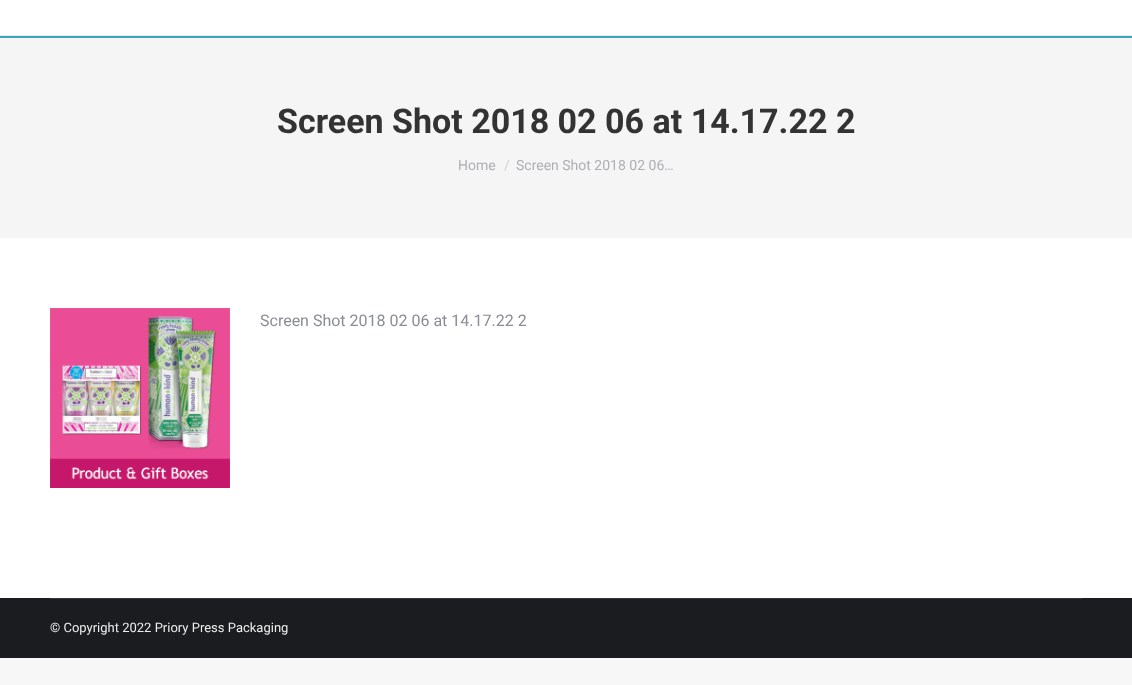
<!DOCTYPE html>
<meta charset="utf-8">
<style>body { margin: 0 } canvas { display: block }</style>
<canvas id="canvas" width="1132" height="685"></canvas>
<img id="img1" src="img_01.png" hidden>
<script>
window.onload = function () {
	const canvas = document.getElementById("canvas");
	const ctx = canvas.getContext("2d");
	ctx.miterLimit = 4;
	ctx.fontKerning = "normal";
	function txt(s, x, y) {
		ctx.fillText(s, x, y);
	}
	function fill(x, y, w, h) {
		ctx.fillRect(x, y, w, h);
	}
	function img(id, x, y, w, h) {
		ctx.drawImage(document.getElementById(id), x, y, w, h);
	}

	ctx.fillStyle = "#F7F7F7";
	fill(0, 0, 1132, 685);
	ctx.fillStyle = "#FFFFFF";
	fill(0, 0, 1132, 598);
	ctx.fillStyle = "#3CA7BA";
	fill(0, 36, 1132, 2);
	ctx.fillStyle = "#E9E9E9";
	fill(0, 35, 1132, 1);
	ctx.fillStyle = "#F5F5F5";
	fill(0, 38, 1132, 200);
	img("img1", 50, 308, 180, 180);
	ctx.fillStyle = "#1A1C20";
	fill(0, 598, 1132, 60);
	ctx.fillStyle = "#35373B";
	fill(50, 598, 1032, 1);
	ctx.font = "bold 34px Roboto";
	ctx.fillStyle = "#333333";
	txt("Screen Shot 2018 02 06 at 14.17.22 2", 277, 133);
	ctx.font = "14px Roboto";
	ctx.fillStyle = "#ADAFB3";
	txt("Home", 458, 170);
	ctx.fillStyle = "#D1D2D4";
	txt("/", 504, 170);
	ctx.fillStyle = "#ADAFB3";
	txt("Screen Shot 2018 02 06…", 516, 170);
	ctx.font = "16px Roboto";
	ctx.fillStyle = "#8B8D94";
	txt("Screen Shot 2018 02 06 at 14.17.22 2", 260, 326);
	ctx.font = "13px Roboto";
	ctx.fillStyle = "#EEEEEE";
	txt("© Copyright 2022 Priory Press Packaging", 50, 632);
};
</script>
